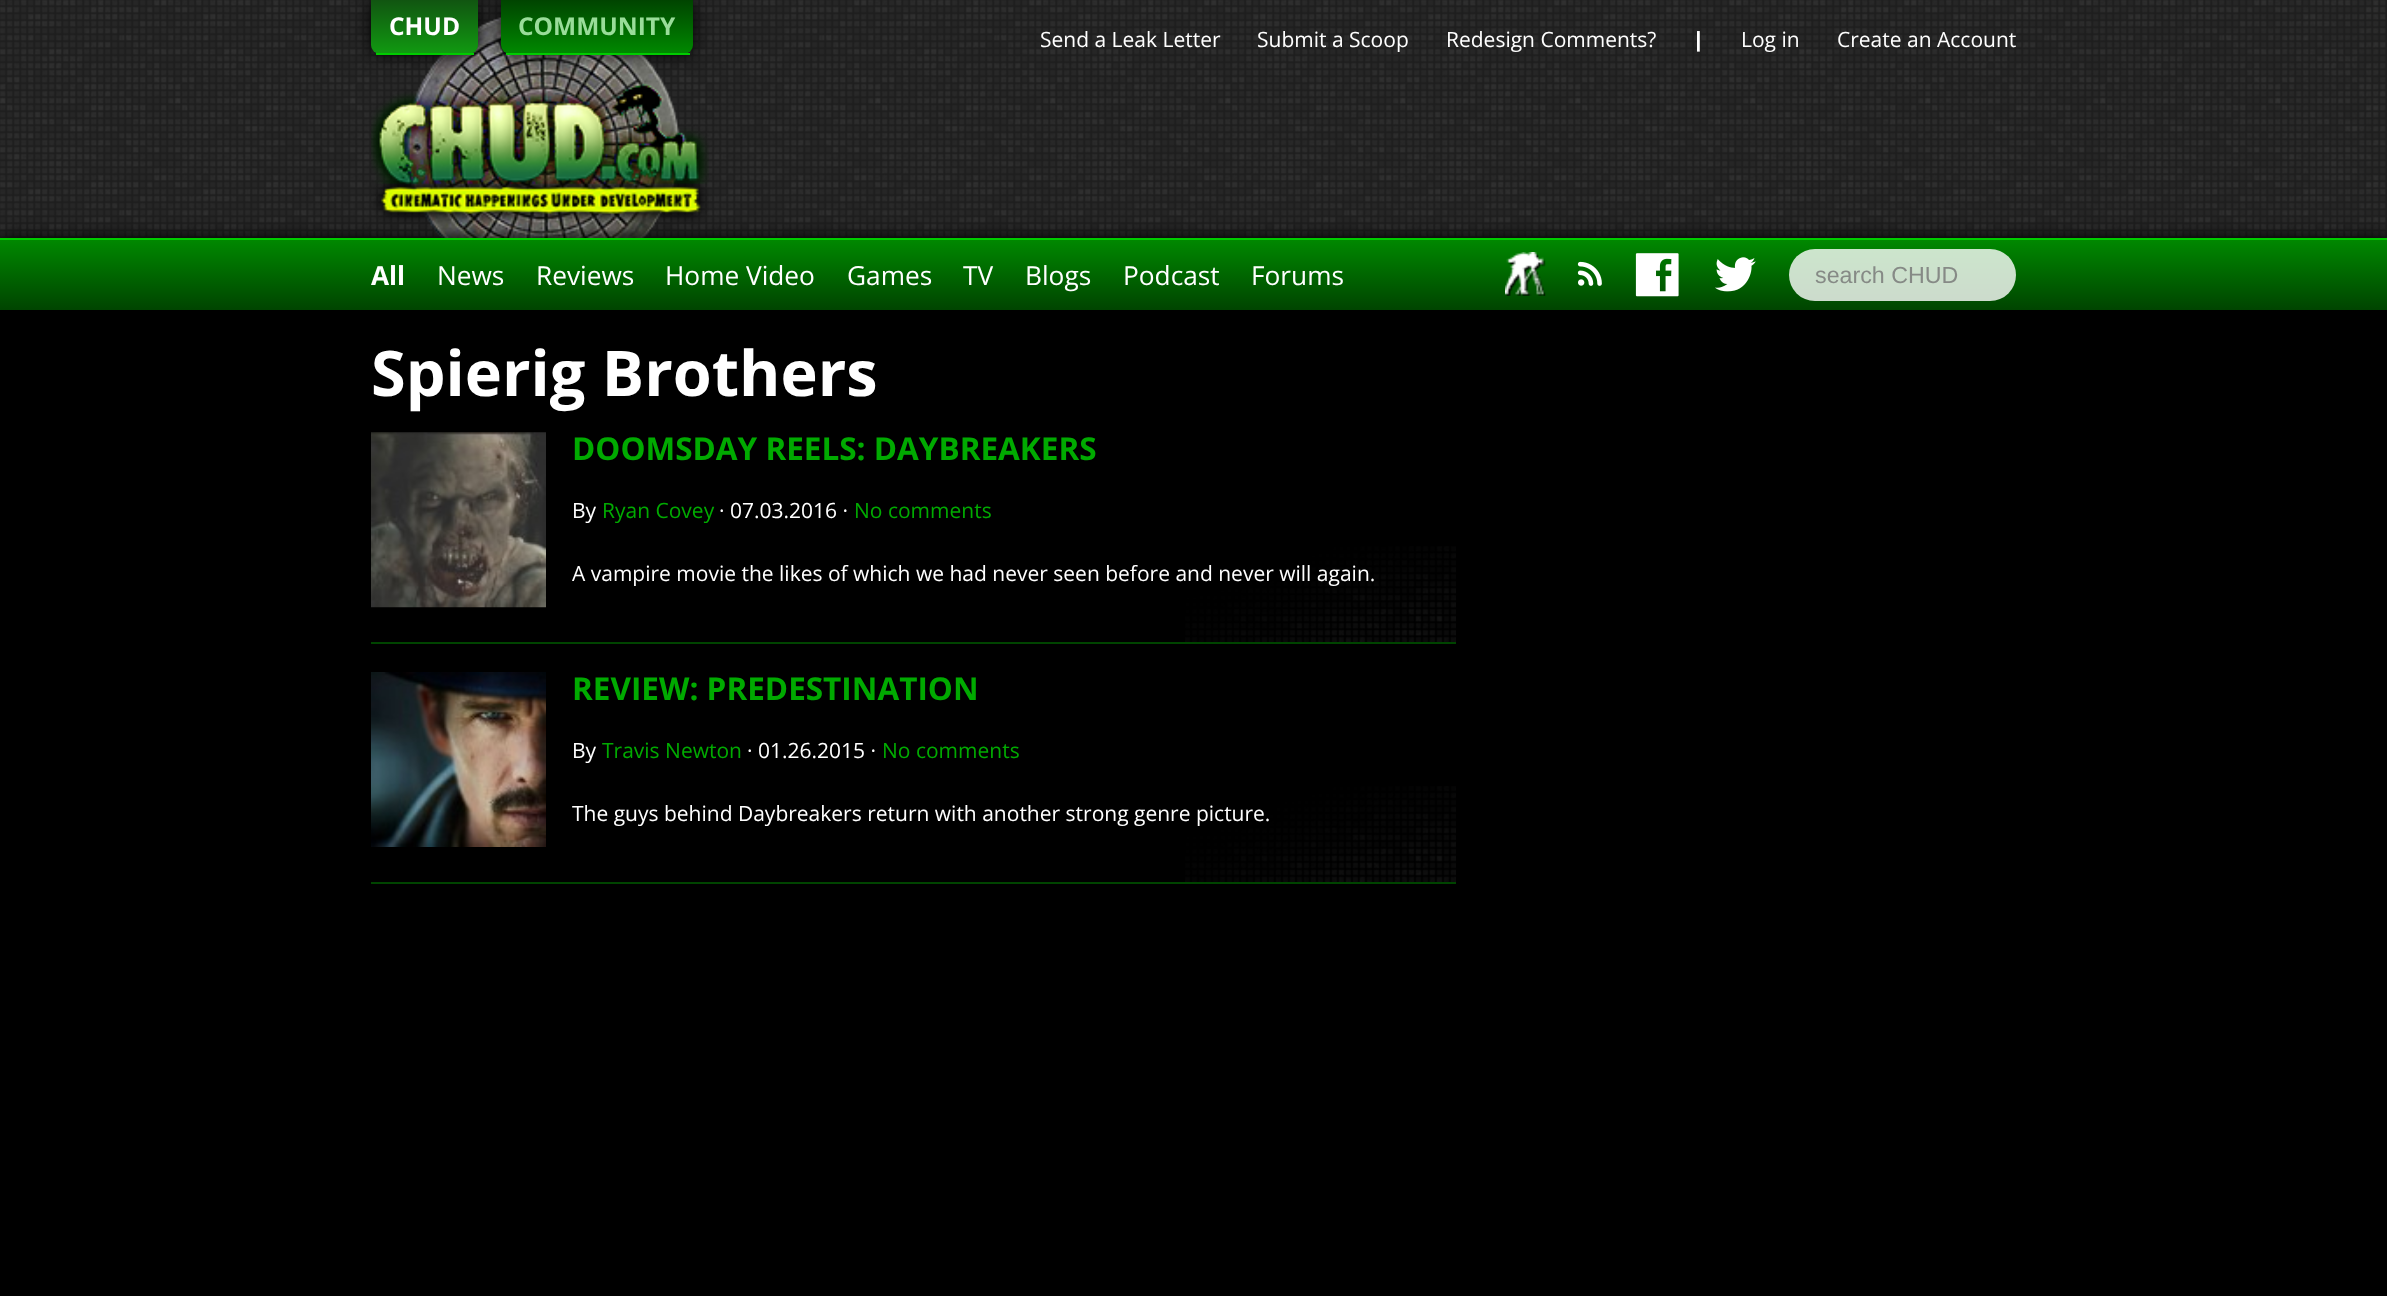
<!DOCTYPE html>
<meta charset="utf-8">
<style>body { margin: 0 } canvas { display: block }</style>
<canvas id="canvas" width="2387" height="1296"></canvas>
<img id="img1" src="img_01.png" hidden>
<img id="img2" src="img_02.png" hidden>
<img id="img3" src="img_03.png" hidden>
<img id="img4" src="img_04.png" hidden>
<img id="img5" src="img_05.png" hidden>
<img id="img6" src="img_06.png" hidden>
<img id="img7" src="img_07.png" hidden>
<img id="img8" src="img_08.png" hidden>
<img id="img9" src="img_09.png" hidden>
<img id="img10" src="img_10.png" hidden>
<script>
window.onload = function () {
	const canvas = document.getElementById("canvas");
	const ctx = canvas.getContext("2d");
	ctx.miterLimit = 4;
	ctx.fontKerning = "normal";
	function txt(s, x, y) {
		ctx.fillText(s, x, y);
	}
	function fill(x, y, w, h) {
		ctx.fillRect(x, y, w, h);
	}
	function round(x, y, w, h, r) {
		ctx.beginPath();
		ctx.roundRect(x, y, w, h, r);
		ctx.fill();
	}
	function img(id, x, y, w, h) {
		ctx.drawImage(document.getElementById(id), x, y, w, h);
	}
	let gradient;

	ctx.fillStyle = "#000000";
	fill(0, 0, 2387, 1296);
	ctx.fillStyle = "#1E1E1E";
	fill(0, 0, 2387, 238);
	img("img1", 0, 0, 2386, 237);
	img("img2", 371, 17, 338, 221);
	ctx.fillStyle = "#000000";
	ctx.filter = "blur(9px)";
	ctx.beginPath();
	ctx.roundRect(371, 0, 107, 54, 9);
	ctx.fill();
	ctx.filter = "none";
	ctx.save();
	ctx.beginPath();
	ctx.roundRect(371, 0, 107, 54, [0, 0, 9, 9]);
	ctx.clip();
	gradient = ctx.createLinearGradient(371, 53, 371, 0);
	gradient.addColorStop(0, "#119911");
	gradient.addColorStop(1, "#115511");
	ctx.fillStyle = gradient;
	fill(371, 0, 107, 53);
	ctx.restore();
	ctx.fillStyle = "#00CC00";
	fill(376, 53, 98, 2);
	ctx.fillStyle = "#000000";
	ctx.filter = "blur(9px)";
	ctx.beginPath();
	ctx.roundRect(501, 0, 192, 54, 9);
	ctx.fill();
	ctx.filter = "none";
	ctx.save();
	ctx.beginPath();
	ctx.roundRect(501, 0, 192, 54, [0, 0, 9, 9]);
	ctx.clip();
	gradient = ctx.createLinearGradient(501, 53, 501, 0);
	gradient.addColorStop(0, "#008800");
	gradient.addColorStop(1, "#004400");
	ctx.fillStyle = gradient;
	fill(501, 0, 192, 53);
	ctx.restore();
	ctx.fillStyle = "#00CC00";
	fill(506, 53, 184, 2);
	ctx.fillStyle = "#000000";
	ctx.filter = "blur(9px)";
	ctx.beginPath();
	ctx.rect(0, 238, 2387, 72);
	ctx.fill();
	ctx.filter = "none";
	gradient = ctx.createLinearGradient(0, 310, 0, 240);
	gradient.addColorStop(0, "#004400");
	gradient.addColorStop(1, "#008800");
	ctx.fillStyle = gradient;
	fill(0, 240, 2387, 70);
	ctx.fillStyle = "#00CC00";
	fill(0, 238, 2387, 2);
	img("img3", 1505, 252, 41, 44);
	img("img4", 1577, 261, 25, 25);
	img("img5", 1635, 253, 44, 44);
	img("img6", 1715, 257, 41, 35);
	ctx.fillStyle = "rgba(255, 255, 255, 0.8)";
	round(1789, 249, 227, 52, 26);
	img("img7", 1185, 546, 271, 96);
	ctx.fillStyle = "#004400";
	fill(371, 642, 1085, 2);
	img("img8", 371, 432, 175, 176);
	img("img9", 1185, 786, 271, 96);
	fill(371, 882, 1085, 2);
	img("img10", 371, 672, 175, 175);
	ctx.font = "bold 24.5px Open Sans";
	ctx.fillStyle = "#FFFFFF";
	txt("CHUD", 389, 35);
	ctx.fillStyle = "#99DD99";
	txt("COMMUNITY", 518, 35);
	ctx.font = "21px Open Sans";
	ctx.fillStyle = "#FFFFFF";
	txt("Send a Leak Letter", 1040, 47);
	txt("Submit a Scoop", 1257, 47);
	txt("Redesign Comments?", 1446, 47);
	ctx.font = "800 21px Open Sans";
	txt("|", 1693, 47);
	ctx.font = "21px Open Sans";
	txt("Log in", 1741, 47);
	txt("Create an Account", 1837, 47);
	ctx.font = "bold 26.25px Open Sans";
	txt("All", 371, 285);
	ctx.font = "26.25px Open Sans";
	txt("News", 437, 285);
	txt("Reviews", 536, 285);
	txt("Home Video", 665, 285);
	txt("Games", 847, 285);
	txt("TV", 963, 285);
	txt("Blogs", 1025, 285);
	txt("Podcast", 1123, 285);
	txt("Forums", 1251, 285);
	ctx.font = "23.25px Liberation Sans";
	ctx.fillStyle = "#868A86";
	txt("search CHUD", 1815, 283);
	ctx.font = "bold 63px Open Sans";
	ctx.fillStyle = "#FFFFFF";
	txt("Spierig Brothers", 371, 396);
	ctx.font = "bold 31.5px Open Sans";
	ctx.fillStyle = "#00AA00";
	txt("DOOMSDAY REELS: DAYBREAKERS", 572, 460);
	ctx.font = "21px Open Sans";
	ctx.fillStyle = "#FFFFFF";
	txt("By", 572, 518);
	ctx.fillStyle = "#00AA00";
	txt("Ryan Covey", 602, 518);
	ctx.fillStyle = "#FFFFFF";
	txt("· 07.03.2016 ·", 719, 518);
	ctx.fillStyle = "#00AA00";
	txt("No comments", 854, 518);
	ctx.fillStyle = "#FFFFFF";
	txt("A vampire movie the likes of which we had never seen before and never will again.", 572, 581);
	ctx.font = "bold 31.5px Open Sans";
	ctx.fillStyle = "#00AA00";
	txt("REVIEW: PREDESTINATION", 572, 700);
	ctx.font = "21px Open Sans";
	ctx.fillStyle = "#FFFFFF";
	txt("By", 572, 758);
	ctx.fillStyle = "#00AA00";
	txt("Travis Newton", 602, 758);
	ctx.fillStyle = "#FFFFFF";
	txt("· 01.26.2015 ·", 747, 758);
	ctx.fillStyle = "#00AA00";
	txt("No comments", 882, 758);
	ctx.fillStyle = "#FFFFFF";
	txt("The guys behind Daybreakers return with another strong genre picture.", 572, 821);
};
</script>
